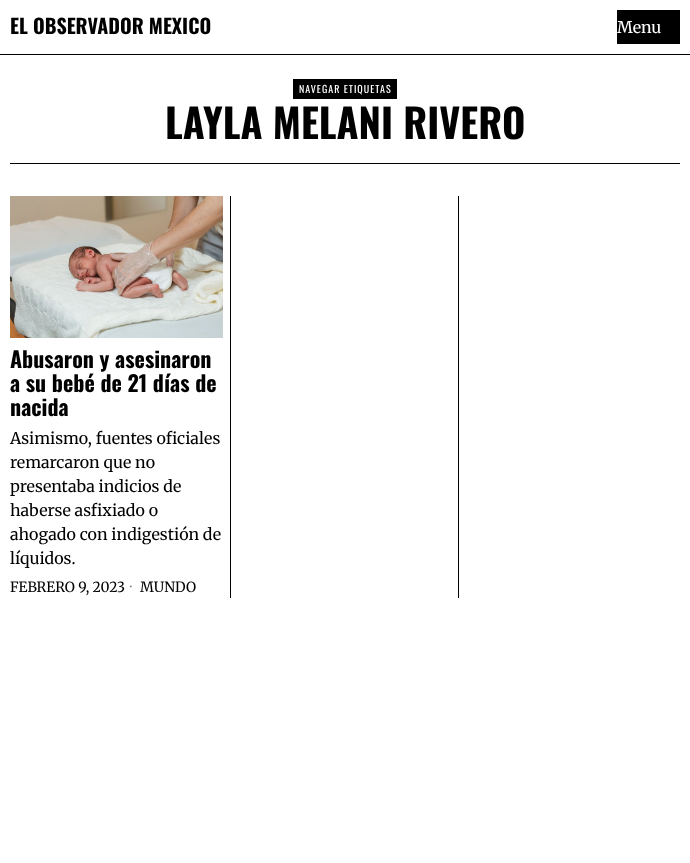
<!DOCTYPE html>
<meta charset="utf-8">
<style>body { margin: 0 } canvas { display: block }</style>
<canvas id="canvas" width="690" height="863"></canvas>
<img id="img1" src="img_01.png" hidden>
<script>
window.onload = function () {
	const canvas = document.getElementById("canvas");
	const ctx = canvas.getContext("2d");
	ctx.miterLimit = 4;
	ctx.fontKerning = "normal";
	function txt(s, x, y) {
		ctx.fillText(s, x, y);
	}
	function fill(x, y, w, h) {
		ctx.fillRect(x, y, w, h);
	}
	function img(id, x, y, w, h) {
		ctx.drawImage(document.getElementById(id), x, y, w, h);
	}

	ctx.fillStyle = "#FFFFFF";
	fill(0, 0, 690, 863);
	ctx.fillStyle = "#000000";
	fill(0, 54, 690, 1);
	fill(617, 10, 63, 34);
	fill(10, 163, 670, 1);
	fill(293, 79, 104, 20);
	img("img1", 10, 196, 213, 142);
	fill(230, 196, 1, 402);
	fill(458, 196, 1, 402);
	ctx.font = "bold 20px Oswald";
	txt("EL OBSERVADOR MEXICO", 10, 34);
	ctx.font = "16px Merriweather";
	ctx.fillStyle = "#FFFFFF";
	txt("Menu", 617, 33);
	ctx.letterSpacing = "1px";
	ctx.font = "10px Oswald";
	txt("NAVEGAR ETIQUETAS", 299, 93);
	ctx.letterSpacing = "0px";
	ctx.font = "bold 40px Oswald";
	ctx.fillStyle = "#000000";
	txt("LAYLA MELANI RIVERO", 165, 139);
	ctx.font = "bold 22px Oswald";
	txt("Abusaron y asesinaron", 10, 368);
	txt("a su bebé de 21 días de", 10, 392);
	txt("nacida", 10, 416);
	ctx.font = "16px Merriweather";
	txt("Asimismo, fuentes oficiales", 10, 444);
	txt("remarcaron que no", 10, 468);
	txt("presentaba indicios de", 10, 492);
	txt("haberse asfixiado o", 10, 516);
	txt("ahogado con indigestión de", 10, 540);
	txt("líquidos.", 10, 564);
	ctx.font = "14px Merriweather";
	txt("FEBRERO 9, 2023", 10, 592);
	ctx.fillStyle = "#808080";
	txt("·", 130, 592);
	ctx.fillStyle = "#000000";
	txt("MUNDO", 140, 592);
};
</script>
